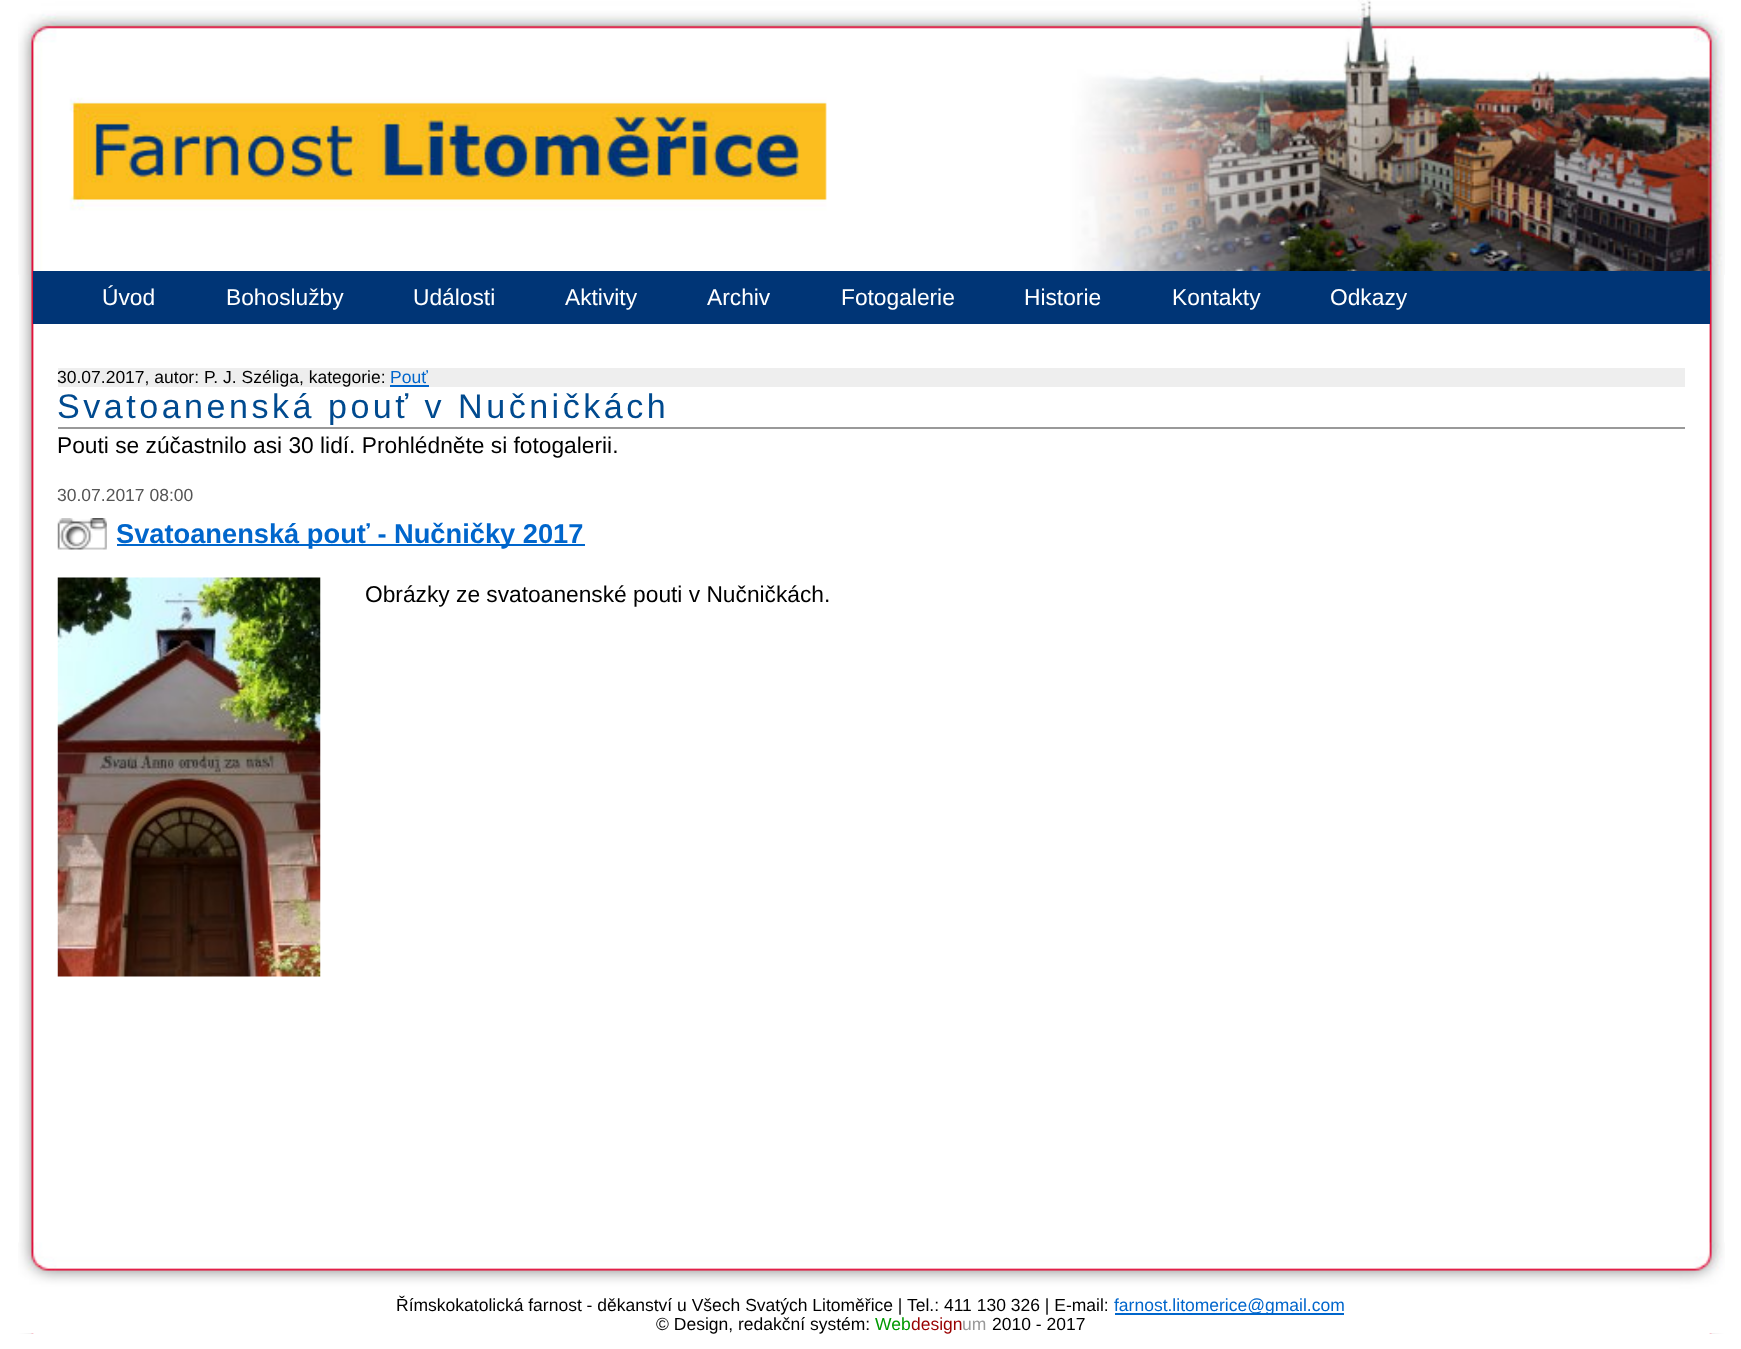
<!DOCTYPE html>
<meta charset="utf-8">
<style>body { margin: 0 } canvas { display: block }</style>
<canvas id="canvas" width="1741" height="1349"></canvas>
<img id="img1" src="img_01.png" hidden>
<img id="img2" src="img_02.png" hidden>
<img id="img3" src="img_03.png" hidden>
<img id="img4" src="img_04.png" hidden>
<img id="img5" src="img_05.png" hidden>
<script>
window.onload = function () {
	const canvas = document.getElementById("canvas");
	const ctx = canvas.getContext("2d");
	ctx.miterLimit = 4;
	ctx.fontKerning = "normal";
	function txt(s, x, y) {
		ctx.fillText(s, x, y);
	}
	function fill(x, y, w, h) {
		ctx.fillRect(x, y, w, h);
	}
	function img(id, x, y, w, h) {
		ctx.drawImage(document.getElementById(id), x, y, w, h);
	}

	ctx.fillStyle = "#FFFFFF";
	fill(0, 0, 1741, 1349);
	img("img1", 19, 274, 1705, 1060);
	img("img2", 18, 0, 1707, 275);
	ctx.fillStyle = "#003576";
	fill(33, 271, 1677, 53);
	ctx.fillStyle = "#EEEEEE";
	fill(58, 368, 1627, 19);
	ctx.fillStyle = "#0066CC";
	fill(390, 385, 39, 2);
	ctx.fillStyle = "#999999";
	fill(58, 427, 1627, 2);
	img("img3", 57, 518, 50, 32);
	ctx.fillStyle = "#0066CC";
	fill(117, 544, 468, 2);
	img("img4", 57, 577, 264, 400);
	img("img5", 18, 1242, 1707, 92);
	fill(1115, 1313, 229, 2);
	ctx.font = "22.75px Liberation Sans";
	ctx.fillStyle = "#FFFFFF";
	txt("Úvod", 102, 305);
	txt("Bohoslužby", 226, 305);
	txt("Události", 413, 305);
	txt("Aktivity", 565, 305);
	txt("Archiv", 707, 305);
	txt("Fotogalerie", 841, 305);
	txt("Historie", 1024, 305);
	txt("Kontakty", 1172, 305);
	txt("Odkazy", 1330, 305);
	ctx.font = "17.5px Liberation Sans";
	ctx.fillStyle = "#000000";
	txt("30.07.2017, autor: P. J. Széliga, kategorie:", 57, 383);
	ctx.fillStyle = "#0066CC";
	txt("Pouť", 390, 383);
	ctx.letterSpacing = "3.5px";
	ctx.font = "34.1px Liberation Sans";
	ctx.fillStyle = "#004A8F";
	txt("Svatoanenská pouť v Nučničkách", 57, 418);
	ctx.letterSpacing = "0px";
	ctx.font = "22.75px Liberation Sans";
	ctx.fillStyle = "#000000";
	txt("Pouti se zúčastnilo asi 30 lidí. Prohlédněte si fotogalerii.", 57, 453);
	ctx.font = "17.5px Liberation Sans";
	ctx.fillStyle = "#555555";
	txt("30.07.2017 08:00", 57, 501);
	ctx.font = "bold 27.25px Liberation Sans";
	ctx.fillStyle = "#0066CC";
	txt("Svatoanenská pouť - Nučničky 2017", 116, 543);
	ctx.font = "22.75px Liberation Sans";
	ctx.fillStyle = "#000000";
	txt("Obrázky ze svatoanenské pouti v Nučničkách.", 365, 602);
	ctx.font = "17.5px Liberation Sans";
	txt("Římskokatolická farnost - děkanství u Všech Svatých Litoměřice | Tel.: 411 130 326 | E-mail:", 396, 1311);
	ctx.fillStyle = "#0066CC";
	txt("farnost.litomerice@gmail.com", 1114, 1311);
	ctx.fillStyle = "#000000";
	txt("© Design, redakční systém:", 656, 1330);
	ctx.fillStyle = "#009900";
	txt("Web", 875, 1330);
	ctx.fillStyle = "#990000";
	txt("design", 911, 1330);
	ctx.fillStyle = "#999999";
	txt("um", 962, 1330);
	ctx.fillStyle = "#000000";
	txt("2010 - 2017", 992, 1330);
};
</script>
